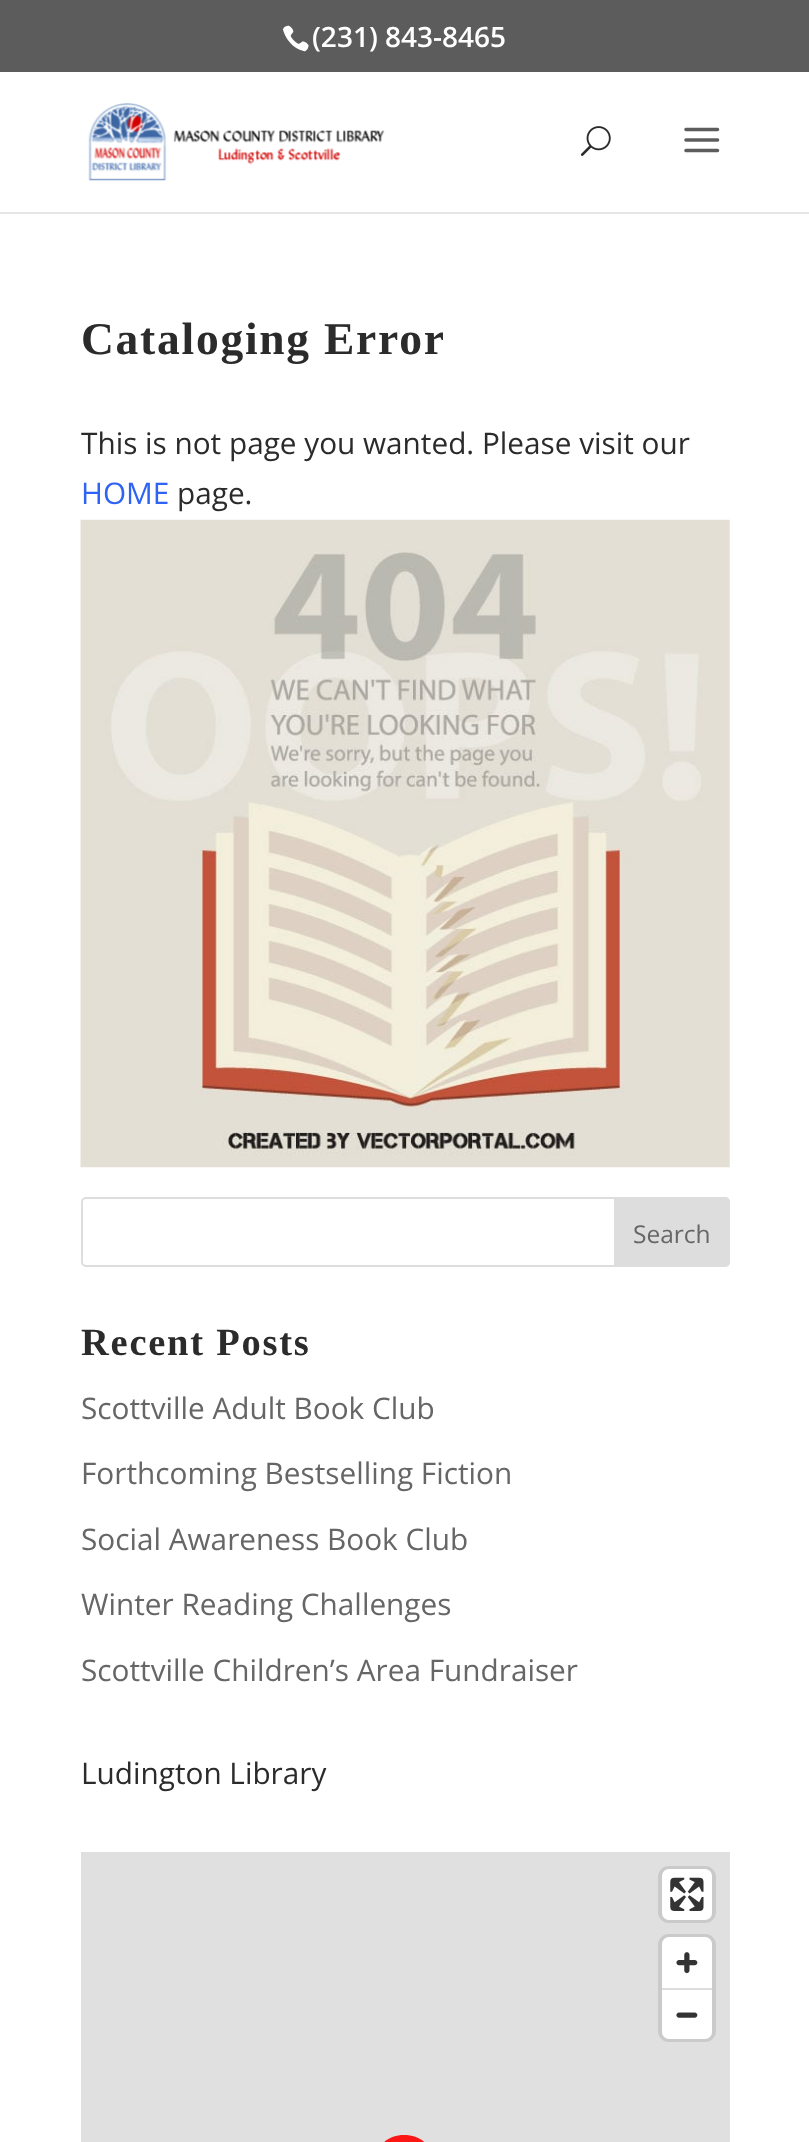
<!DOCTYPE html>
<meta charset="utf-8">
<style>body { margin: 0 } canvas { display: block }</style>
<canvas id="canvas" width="809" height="2142"></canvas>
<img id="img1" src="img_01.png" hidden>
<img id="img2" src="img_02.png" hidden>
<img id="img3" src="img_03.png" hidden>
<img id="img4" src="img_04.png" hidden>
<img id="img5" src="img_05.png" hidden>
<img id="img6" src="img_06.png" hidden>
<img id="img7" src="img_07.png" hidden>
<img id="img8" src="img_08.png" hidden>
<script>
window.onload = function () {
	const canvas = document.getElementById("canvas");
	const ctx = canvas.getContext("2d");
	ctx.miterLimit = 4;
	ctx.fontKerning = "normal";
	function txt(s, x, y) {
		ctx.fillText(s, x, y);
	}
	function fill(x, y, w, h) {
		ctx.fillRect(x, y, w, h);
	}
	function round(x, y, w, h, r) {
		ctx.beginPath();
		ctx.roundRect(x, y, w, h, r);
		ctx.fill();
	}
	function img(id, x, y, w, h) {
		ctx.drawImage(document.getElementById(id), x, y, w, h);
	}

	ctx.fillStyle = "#FFFFFF";
	fill(0, 0, 809, 2142);
	ctx.fillStyle = "#5C5C5C";
	fill(0, 0, 809, 72);
	img("img1", 282, 25, 27, 27);
	ctx.fillStyle = "#E6E6E6";
	fill(0, 212, 809, 2);
	img("img2", 88, 103, 297, 78);
	img("img3", 580, 126, 31, 30);
	img("img4", 684, 127, 36, 26);
	img("img5", 80, 519, 650, 649);
	ctx.beginPath();
	ctx.roundRect(82, 1198, 647, 68, 4);
	ctx.strokeStyle = "#DDDDDD";
	ctx.lineWidth = 2;
	ctx.stroke();
	ctx.fillStyle = "#DDDDDD";
	ctx.beginPath();
	ctx.roundRect(615, 1198, 114, 68, [0, 4, 4, 0]);
	ctx.fill();
	ctx.stroke();
	ctx.fillStyle = "#E0E0E0";
	fill(81, 1852, 649, 290);
	ctx.beginPath();
	ctx.roundRect(660, 1868, 54, 53, 9);
	ctx.strokeStyle = "#CACACA";
	ctx.lineWidth = 4;
	ctx.stroke();
	ctx.fillStyle = "#FFFFFF";
	round(662, 1869, 50, 51, 7);
	img("img6", 670, 1877, 34, 34);
	ctx.beginPath();
	ctx.roundRect(660, 1936, 54, 104, 9);
	ctx.stroke();
	round(662, 1937, 50, 102, 7);
	img("img7", 676, 1952, 22, 22);
	ctx.fillStyle = "#DDDDDD";
	fill(662, 1988, 50, 2);
	img("img8", 676, 2012, 22, 6);
	ctx.fillStyle = "#FC1616";
	ctx.beginPath();
	ctx.moveTo(404, 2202);
	ctx.bezierCurveTo(404, 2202, 432, 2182, 432, 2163);
	ctx.bezierCurveTo(432, 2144, 420, 2135, 404, 2135);
	ctx.bezierCurveTo(389, 2135, 376, 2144, 376, 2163);
	ctx.bezierCurveTo(376, 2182, 404, 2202, 404, 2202);
	ctx.closePath();
	ctx.fill("evenodd");
	ctx.font = "600 28px Open Sans";
	ctx.fillStyle = "#FFFFFF";
	txt("(231) 843-8465", 312, 47);
	ctx.letterSpacing = "1.75px";
	ctx.font = "bold 45.5px Liberation Serif";
	ctx.fillStyle = "#2B2B2B";
	txt("Cataloging Error", 81, 354);
	ctx.letterSpacing = "0px";
	ctx.font = "29.75px Open Sans";
	txt("This is not page you wanted. Please visit our", 81, 454);
	ctx.fillStyle = "#2E63F4";
	txt("HOME", 81, 504);
	ctx.fillStyle = "#2B2B2B";
	txt("page.", 177, 504);
	ctx.font = "24.5px Open Sans";
	ctx.fillStyle = "#666666";
	txt("Search", 633, 1243);
	ctx.letterSpacing = "1.75px";
	ctx.font = "bold 38.5px Liberation Serif";
	ctx.fillStyle = "#2B2B2B";
	txt("Recent Posts", 81, 1355);
	ctx.letterSpacing = "0px";
	ctx.font = "29.75px Open Sans";
	ctx.fillStyle = "#666666";
	txt("Scottville Adult Book Club", 81, 1419);
	txt("Forthcoming Bestselling Fiction", 81, 1484);
	txt("Social Awareness Book Club", 81, 1550);
	txt("Winter Reading Challenges", 81, 1615);
	txt("Scottville Children’s Area Fundraiser", 81, 1681);
	ctx.fillStyle = "#2B2B2B";
	txt("Ludington Library", 81, 1784);
};
</script>
